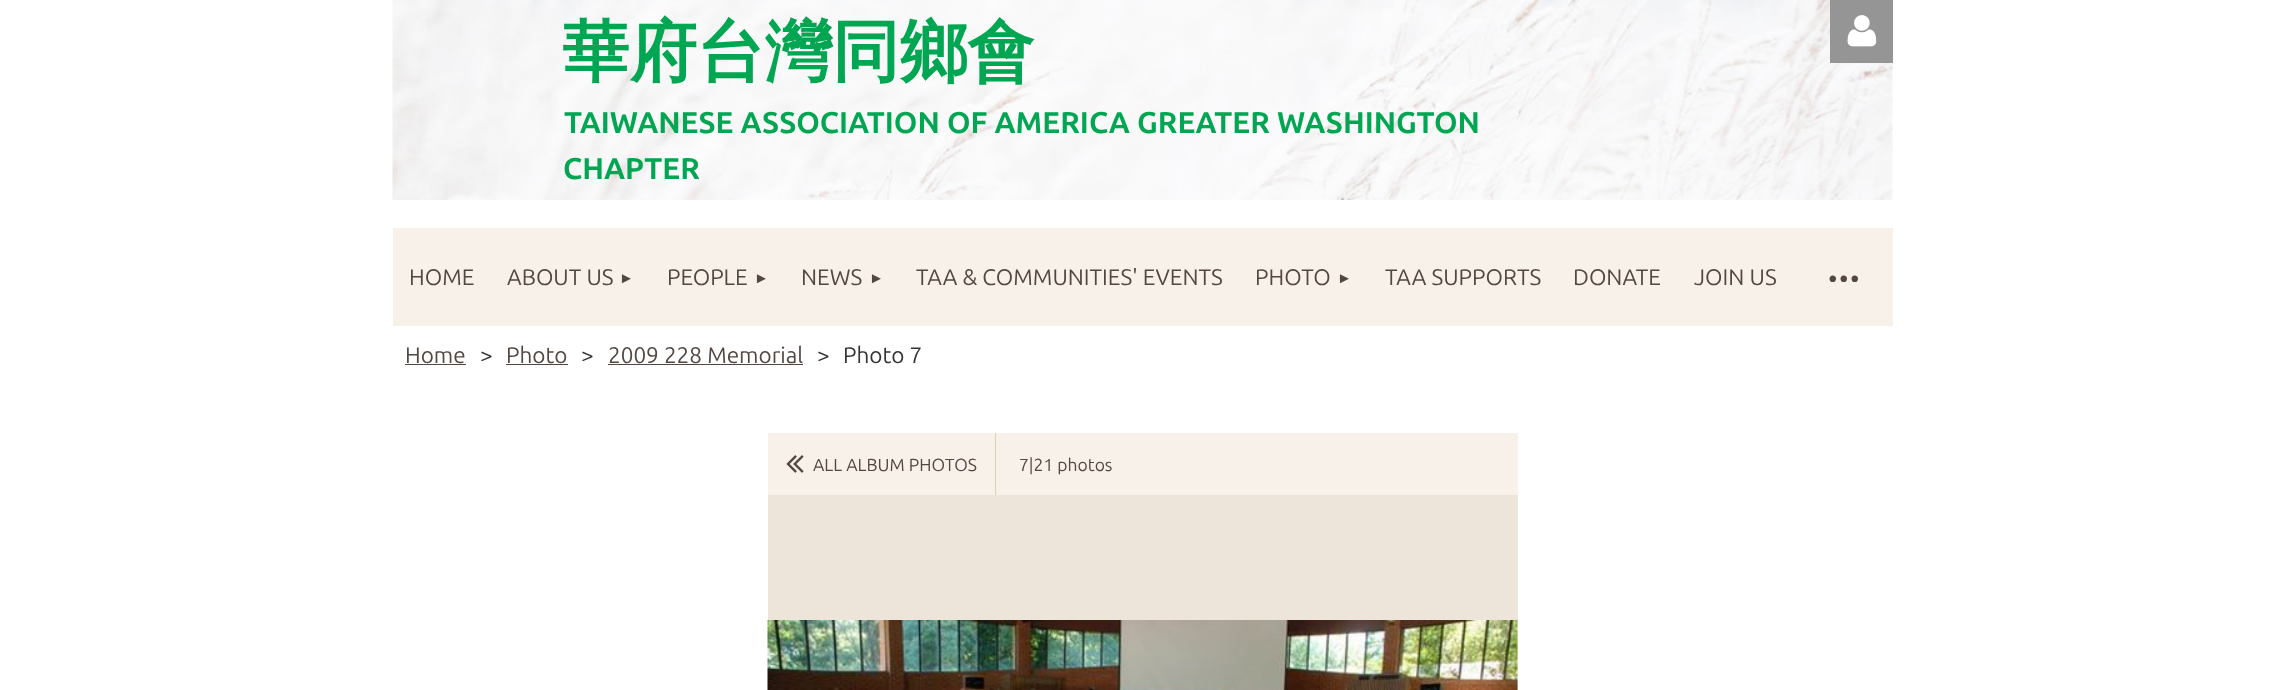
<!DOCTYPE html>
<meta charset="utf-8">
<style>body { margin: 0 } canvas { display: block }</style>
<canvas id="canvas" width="2285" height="690"></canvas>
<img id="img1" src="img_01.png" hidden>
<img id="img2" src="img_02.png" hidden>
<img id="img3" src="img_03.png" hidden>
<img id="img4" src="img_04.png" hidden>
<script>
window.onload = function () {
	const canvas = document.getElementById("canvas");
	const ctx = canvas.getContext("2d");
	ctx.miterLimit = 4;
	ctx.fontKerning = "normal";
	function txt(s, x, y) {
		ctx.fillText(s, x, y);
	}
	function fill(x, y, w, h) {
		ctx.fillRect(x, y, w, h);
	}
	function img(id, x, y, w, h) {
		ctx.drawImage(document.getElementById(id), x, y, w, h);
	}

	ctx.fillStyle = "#FFFFFF";
	fill(0, 0, 2285, 690);
	img("img1", 392, 0, 1501, 200);
	ctx.fillStyle = "#959595";
	fill(1830, 0, 63, 63);
	img("img2", 1847, 15, 30, 32);
	ctx.fillStyle = "#F8F1E9";
	fill(393, 228, 1500, 98);
	ctx.fillStyle = "#534741";
	fill(405, 364, 61, 1);
	fill(506, 364, 62, 1);
	fill(608, 364, 195, 1);
	ctx.fillStyle = "#F8F1E9";
	fill(768, 433, 750, 62);
	ctx.fillStyle = "#DBCFB9";
	fill(995, 433, 1, 62);
	img("img3", 786, 455, 18, 18);
	ctx.fillStyle = "#EEE5DA";
	fill(768, 495, 750, 195);
	img("img4", 767, 620, 751, 70);
	ctx.font = "bold 67.5px WenQuanYi Zen Hei";
	ctx.fillStyle = "#00A651";
	txt("華府台灣同鄉會", 562, 75);
	ctx.font = "bold 30px Ubuntu";
	txt("TAIWANESE ASSOCIATION OF AMERICA GREATER WASHINGTON", 564, 133);
	txt("CHAPTER", 563, 179);
	ctx.font = "22.5px Ubuntu";
	ctx.fillStyle = "#534741";
	txt("HOME", 409, 285);
	txt("ABOUT US", 507, 285);
	ctx.font = "15px Liberation Sans";
	txt("►", 619, 283);
	ctx.font = "22.5px Ubuntu";
	txt("PEOPLE", 667, 285);
	ctx.font = "15px Liberation Sans";
	txt("►", 754, 283);
	ctx.font = "22.5px Ubuntu";
	txt("NEWS", 801, 285);
	ctx.font = "15px Liberation Sans";
	txt("►", 869, 283);
	ctx.font = "22.5px Ubuntu";
	txt("TAA & COMMUNITIES' EVENTS", 916, 285);
	txt("PHOTO", 1255, 285);
	ctx.font = "15px Liberation Sans";
	txt("►", 1337, 283);
	ctx.font = "22.5px Ubuntu";
	txt("TAA SUPPORTS", 1385, 285);
	txt("DONATE", 1573, 285);
	txt("JOIN US", 1694, 285);
	ctx.letterSpacing = "-2.5px";
	ctx.font = "55px Ubuntu";
	txt("···", 1826, 295);
	ctx.letterSpacing = "0px";
	ctx.font = "22.5px Ubuntu";
	txt("Home", 405, 363);
	ctx.fillStyle = "#333333";
	txt(">", 480, 363);
	ctx.fillStyle = "#534741";
	txt("Photo", 506, 363);
	ctx.fillStyle = "#333333";
	txt(">", 581, 363);
	ctx.fillStyle = "#534741";
	txt("2009 228 Memorial", 608, 363);
	ctx.fillStyle = "#333333";
	txt(">", 817, 363);
	txt("Photo 7", 843, 363);
	ctx.font = "17.5px Ubuntu";
	ctx.fillStyle = "#534741";
	txt("ALL ALBUM PHOTOS", 813, 471);
	txt("7|21 photos", 1019, 471);
};
</script>
